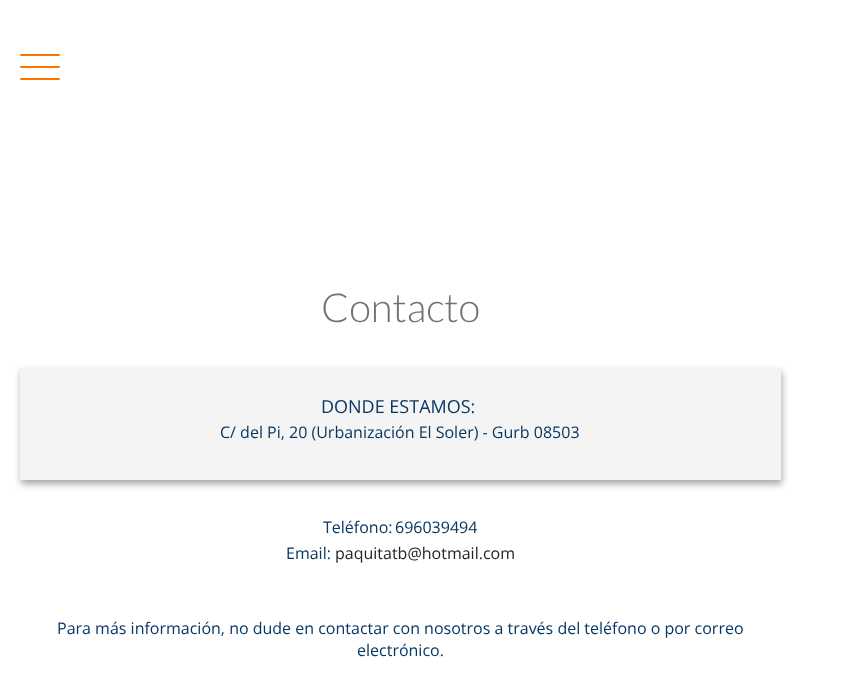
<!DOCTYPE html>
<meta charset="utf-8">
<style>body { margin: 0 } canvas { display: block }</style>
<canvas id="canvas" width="845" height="675"></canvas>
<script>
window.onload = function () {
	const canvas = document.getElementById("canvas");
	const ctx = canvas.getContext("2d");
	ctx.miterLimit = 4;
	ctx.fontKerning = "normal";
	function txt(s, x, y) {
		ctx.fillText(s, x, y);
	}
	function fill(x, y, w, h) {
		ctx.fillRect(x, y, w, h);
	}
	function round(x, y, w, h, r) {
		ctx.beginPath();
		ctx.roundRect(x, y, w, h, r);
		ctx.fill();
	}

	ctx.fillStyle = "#FFFFFF";
	fill(0, 0, 845, 675);
	ctx.fillStyle = "#FD7500";
	round(20, 54, 40, 2, 1);
	round(20, 66, 40, 2, 1);
	round(20, 78, 40, 2, 1);
	ctx.fillStyle = "#A7A6A6";
	ctx.filter = "blur(3.5px)";
	ctx.beginPath();
	ctx.rect(21, 372, 761, 112);
	ctx.fill();
	ctx.filter = "none";
	ctx.fillStyle = "#F4F4F4";
	fill(20, 368, 761, 112);
	ctx.font = "300 40px Lato";
	ctx.fillStyle = "#717171";
	txt("Contacto", 321, 322);
	ctx.font = "18px Open Sans";
	ctx.fillStyle = "#073763";
	txt("DONDE ESTAMOS:", 321, 413);
	ctx.font = "16px Open Sans";
	txt("C/ del Pi, 20 (Urbanización El Soler) - Gurb 08503", 220, 438);
	txt("Teléfono:", 323, 533);
	txt("696039494", 395, 533);
	txt("Email:", 286, 559);
	ctx.fillStyle = "#232323";
	txt("paquitatb@hotmail.com", 335, 559);
	ctx.fillStyle = "#073763";
	txt("Para más información, no dude en contactar con nosotros a través del teléfono o por correo", 57, 634);
	txt("electrónico.", 357, 656);
};
</script>
